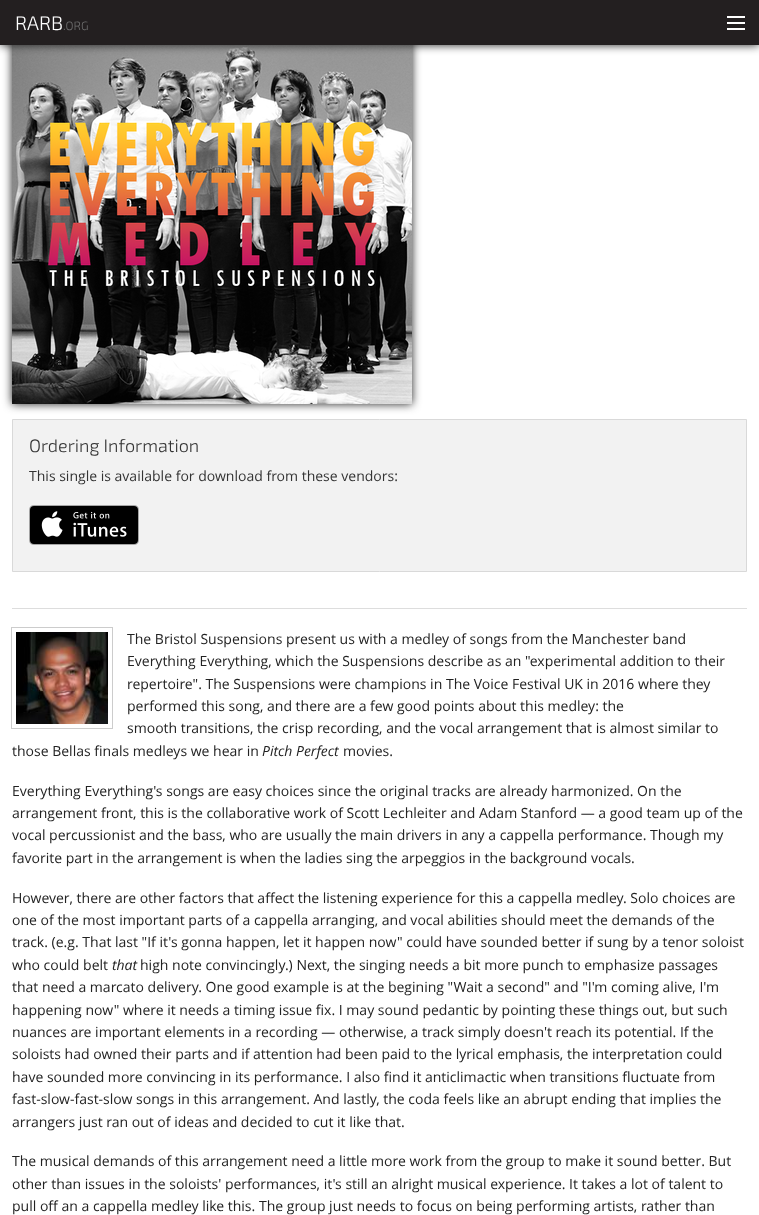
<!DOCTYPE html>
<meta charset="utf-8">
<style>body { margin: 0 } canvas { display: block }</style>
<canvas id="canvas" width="759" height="1215"></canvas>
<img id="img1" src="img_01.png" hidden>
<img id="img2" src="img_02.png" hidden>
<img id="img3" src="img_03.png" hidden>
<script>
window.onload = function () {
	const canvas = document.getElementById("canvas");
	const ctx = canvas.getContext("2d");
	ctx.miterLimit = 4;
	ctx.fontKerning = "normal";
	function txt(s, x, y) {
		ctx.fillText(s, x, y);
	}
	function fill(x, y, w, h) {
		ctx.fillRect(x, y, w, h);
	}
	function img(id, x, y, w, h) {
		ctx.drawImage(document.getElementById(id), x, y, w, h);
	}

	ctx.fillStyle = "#FFFFFF";
	fill(0, 0, 759, 1215);
	ctx.fillStyle = "#222222";
	ctx.filter = "blur(5px)";
	ctx.beginPath();
	ctx.rect(12, 4, 400, 400);
	ctx.fill();
	ctx.filter = "none";
	img("img1", 12, 45, 400, 359);
	ctx.filter = "blur(5px)";
	ctx.beginPath();
	ctx.rect(0, 0, 759, 45);
	ctx.fill();
	ctx.filter = "none";
	ctx.fillStyle = "#231F20";
	fill(0, 0, 759, 45);
	ctx.fillStyle = "#FFFFFF";
	fill(727, 28, 18, 2);
	fill(727, 22, 18, 2);
	fill(727, 16, 18, 2);
	ctx.fillStyle = "#F2F2F2";
	ctx.beginPath();
	ctx.rect(12.5, 419.5, 734, 152);
	ctx.fill();
	ctx.strokeStyle = "#D9D9D9";
	ctx.stroke();
	img("img2", 29, 505, 110, 40);
	ctx.fillStyle = "#DDDDDD";
	fill(12, 608, 735, 1);
	ctx.strokeStyle = "#CCCCCC";
	ctx.strokeRect(11.5, 627.5, 101, 101);
	img("img3", 16, 632, 92, 92);
	ctx.font = "300 19.5px 'Exo 2'";
	ctx.fillStyle = "#FFFFFF";
	txt("RARB", 15, 30);
	ctx.font = "300 12px 'Exo 2'";
	ctx.fillStyle = "#6F6F6F";
	txt(".ORG", 63, 30);
	ctx.font = "300 18px 'Exo 2'";
	ctx.fillStyle = "#333333";
	txt("Ordering Information", 29, 452);
	ctx.font = "14px Open Sans";
	txt("This single is available for download from these vendors:", 29, 481);
	ctx.fillStyle = "#222222";
	txt("The Bristol Suspensions present us with a medley of songs from the Manchester band", 127, 644);
	txt("Everything Everything, which the Suspensions describe as an \"experimental addition to their", 127, 666);
	txt("repertoire\". The Suspensions were champions in The Voice Festival UK in 2016 where they", 127, 689);
	txt("performed this song, and there are a few good points about this medley: the", 127, 711);
	txt("smooth transitions, the crisp recording, and the vocal arrangement that is almost similar to", 127, 733);
	txt("those Bellas finals medleys we hear in", 12, 756);
	ctx.font = "italic 14px Open Sans";
	txt("Pitch Perfect", 262, 756);
	ctx.font = "14px Open Sans";
	txt("movies.", 343, 756);
	txt("Everything Everything's songs are easy choices since the original tracks are already harmonized. On the", 12, 796);
	txt("arrangement front, this is the collaborative work of Scott Lechleiter and Adam Stanford — a good team up of the", 12, 818);
	txt("vocal percussionist and the bass, who are usually the main drivers in any a cappella performance. Though my", 12, 840);
	txt("favorite part in the arrangement is when the ladies sing the arpeggios in the background vocals.", 12, 863);
	txt("However, there are other factors that affect the listening experience for this a cappella medley. Solo choices are", 12, 903);
	txt("one of the most important parts of a cappella arranging, and vocal abilities should meet the demands of the", 12, 925);
	txt("track. (e.g. That last \"If it's gonna happen, let it happen now\" could have sounded better if sung by a tenor soloist", 12, 947);
	txt("who could belt", 12, 970);
	ctx.font = "italic 14px Open Sans";
	txt("that", 112, 970);
	ctx.font = "14px Open Sans";
	txt("high note convincingly.) Next, the singing needs a bit more punch to emphasize passages", 140, 970);
	txt("that need a marcato delivery. One good example is at the begining \"Wait a second\" and \"I'm coming alive, I'm", 12, 992);
	txt("happening now\" where it needs a timing issue fix. I may sound pedantic by pointing these things out, but such", 12, 1015);
	txt("nuances are important elements in a recording — otherwise, a track simply doesn't reach its potential. If the", 12, 1037);
	txt("soloists had owned their parts and if attention had been paid to the lyrical emphasis, the interpretation could", 12, 1059);
	txt("have sounded more convincing in its performance. I also find it anticlimactic when transitions fluctuate from", 12, 1082);
	txt("fast-slow-fast-slow songs in this arrangement. And lastly, the coda feels like an abrupt ending that implies the", 12, 1104);
	txt("arrangers just ran out of ideas and decided to cut it like that.", 12, 1127);
	txt("The musical demands of this arrangement need a little more work from the group to make it sound better. But", 12, 1166);
	txt("other than issues in the soloists' performances, it's still an alright musical experience. It takes a lot of talent to", 12, 1189);
	txt("pull off an a cappella medley like this. The group just needs to focus on being performing artists, rather than", 12, 1211);
};
</script>
